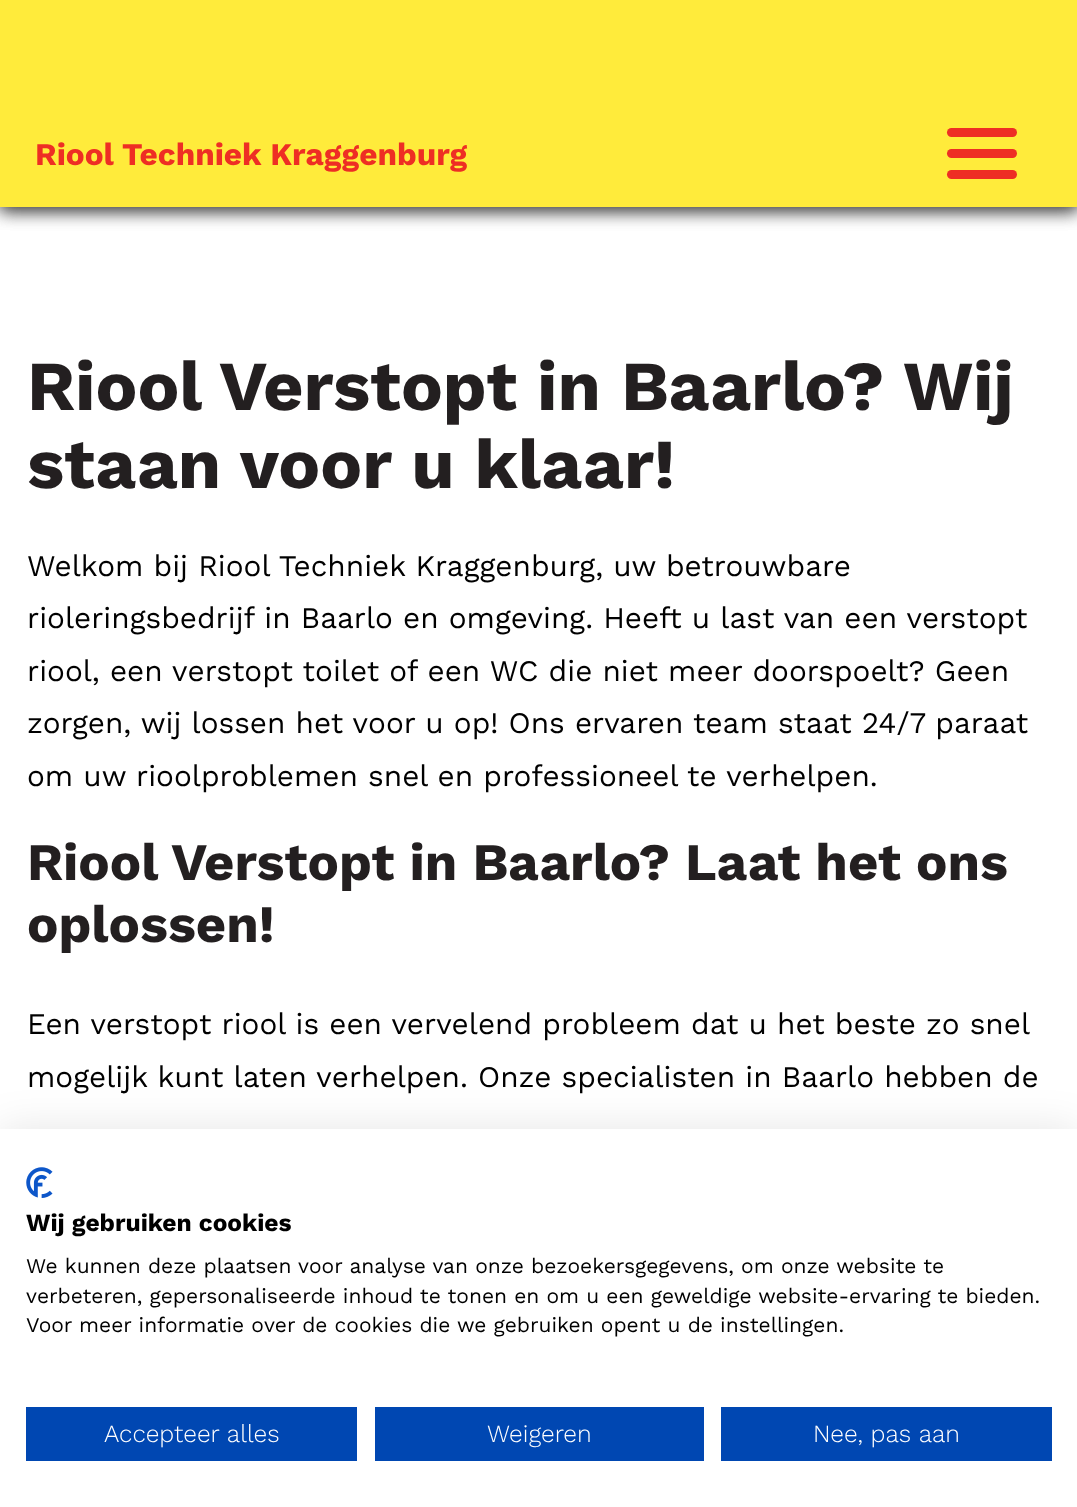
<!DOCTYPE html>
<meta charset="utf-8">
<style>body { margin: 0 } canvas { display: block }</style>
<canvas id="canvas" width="1077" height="1507"></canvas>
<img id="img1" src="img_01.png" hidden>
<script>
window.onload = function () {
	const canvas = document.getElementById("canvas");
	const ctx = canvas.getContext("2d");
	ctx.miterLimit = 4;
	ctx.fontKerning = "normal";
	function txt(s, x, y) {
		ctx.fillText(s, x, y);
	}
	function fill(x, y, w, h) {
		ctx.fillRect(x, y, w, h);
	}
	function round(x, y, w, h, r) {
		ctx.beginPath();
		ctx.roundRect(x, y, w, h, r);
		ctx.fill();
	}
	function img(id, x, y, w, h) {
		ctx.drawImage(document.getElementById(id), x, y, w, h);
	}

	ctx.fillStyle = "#FFFFFF";
	fill(0, 0, 1077, 1507);
	ctx.fillStyle = "rgba(0, 0, 0, 0.55)";
	ctx.filter = "blur(9px)";
	ctx.beginPath();
	ctx.rect(0, 4, 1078, 206);
	ctx.fill();
	ctx.filter = "none";
	ctx.filter = "blur(9px)";
	ctx.beginPath();
	ctx.rect(0, 4, 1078, 206);
	ctx.fill();
	ctx.filter = "none";
	ctx.fillStyle = "#FFEB3B";
	fill(0, 0, 1077, 207);
	ctx.fillStyle = "#EE2E24";
	round(947, 128, 70, 9, 4.5);
	round(947, 149, 70, 9, 4.5);
	round(947, 170, 70, 9, 4.5);
	ctx.fillStyle = "rgba(0, 0, 0, 0.1)";
	ctx.filter = "blur(21px)";
	ctx.beginPath();
	ctx.rect(0, 1129, 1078, 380);
	ctx.fill();
	ctx.filter = "none";
	ctx.fillStyle = "#FFFFFF";
	fill(0, 1129, 1077, 378);
	img("img1", 26, 1167, 27, 31);
	ctx.fillStyle = "#0047B2";
	fill(26, 1407, 331, 54);
	fill(375, 1407, 329, 54);
	fill(721, 1407, 331, 54);
	ctx.font = "bold 31.5px Work Sans";
	ctx.fillStyle = "#EE2E24";
	txt("Riool Techniek Kraggenburg", 35, 165);
	ctx.font = "bold 70px Work Sans";
	ctx.fillStyle = "#231F20";
	txt("Riool Verstopt in Baarlo? Wij", 27, 410);
	txt("staan voor u klaar!", 27, 488);
	ctx.font = "29.75px Work Sans";
	ctx.fillStyle = "#000000";
	txt("Welkom bij Riool Techniek Kraggenburg, uw betrouwbare", 27, 576);
	txt("rioleringsbedrijf in Baarlo en omgeving. Heeft u last van een verstopt", 27, 628);
	txt("riool, een verstopt toilet of een WC die niet meer doorspoelt? Geen", 27, 681);
	txt("zorgen, wij lossen het voor u op! Ons ervaren team staat 24/7 paraat", 27, 733);
	txt("om uw rioolproblemen snel en professioneel te verhelpen.", 27, 786);
	ctx.font = "bold 52.5px Work Sans";
	ctx.fillStyle = "#231F20";
	txt("Riool Verstopt in Baarlo? Laat het ons", 27, 880);
	txt("oplossen!", 27, 942);
	ctx.font = "29.75px Work Sans";
	ctx.fillStyle = "#000000";
	txt("Een verstopt riool is een vervelend probleem dat u het beste zo snel", 27, 1034);
	txt("mogelijk kunt laten verhelpen. Onze specialisten in Baarlo hebben de", 27, 1087);
	ctx.font = "bold 24.5px Work Sans";
	txt("Wij gebruiken cookies", 26, 1231);
	ctx.font = "21px Work Sans";
	txt("We kunnen deze plaatsen voor analyse van onze bezoekersgegevens, om onze website te", 26, 1273);
	txt("verbeteren, gepersonaliseerde inhoud te tonen en om u een geweldige website-ervaring te bieden.", 26, 1303);
	txt("Voor meer informatie over de cookies die we gebruiken opent u de instellingen.", 26, 1332);
	ctx.font = "300 24.5px Work Sans";
	ctx.fillStyle = "#FFFFFF";
	txt("Accepteer alles", 104, 1442);
	txt("Weigeren", 487, 1442);
	txt("Nee, pas aan", 813, 1442);
};
</script>
